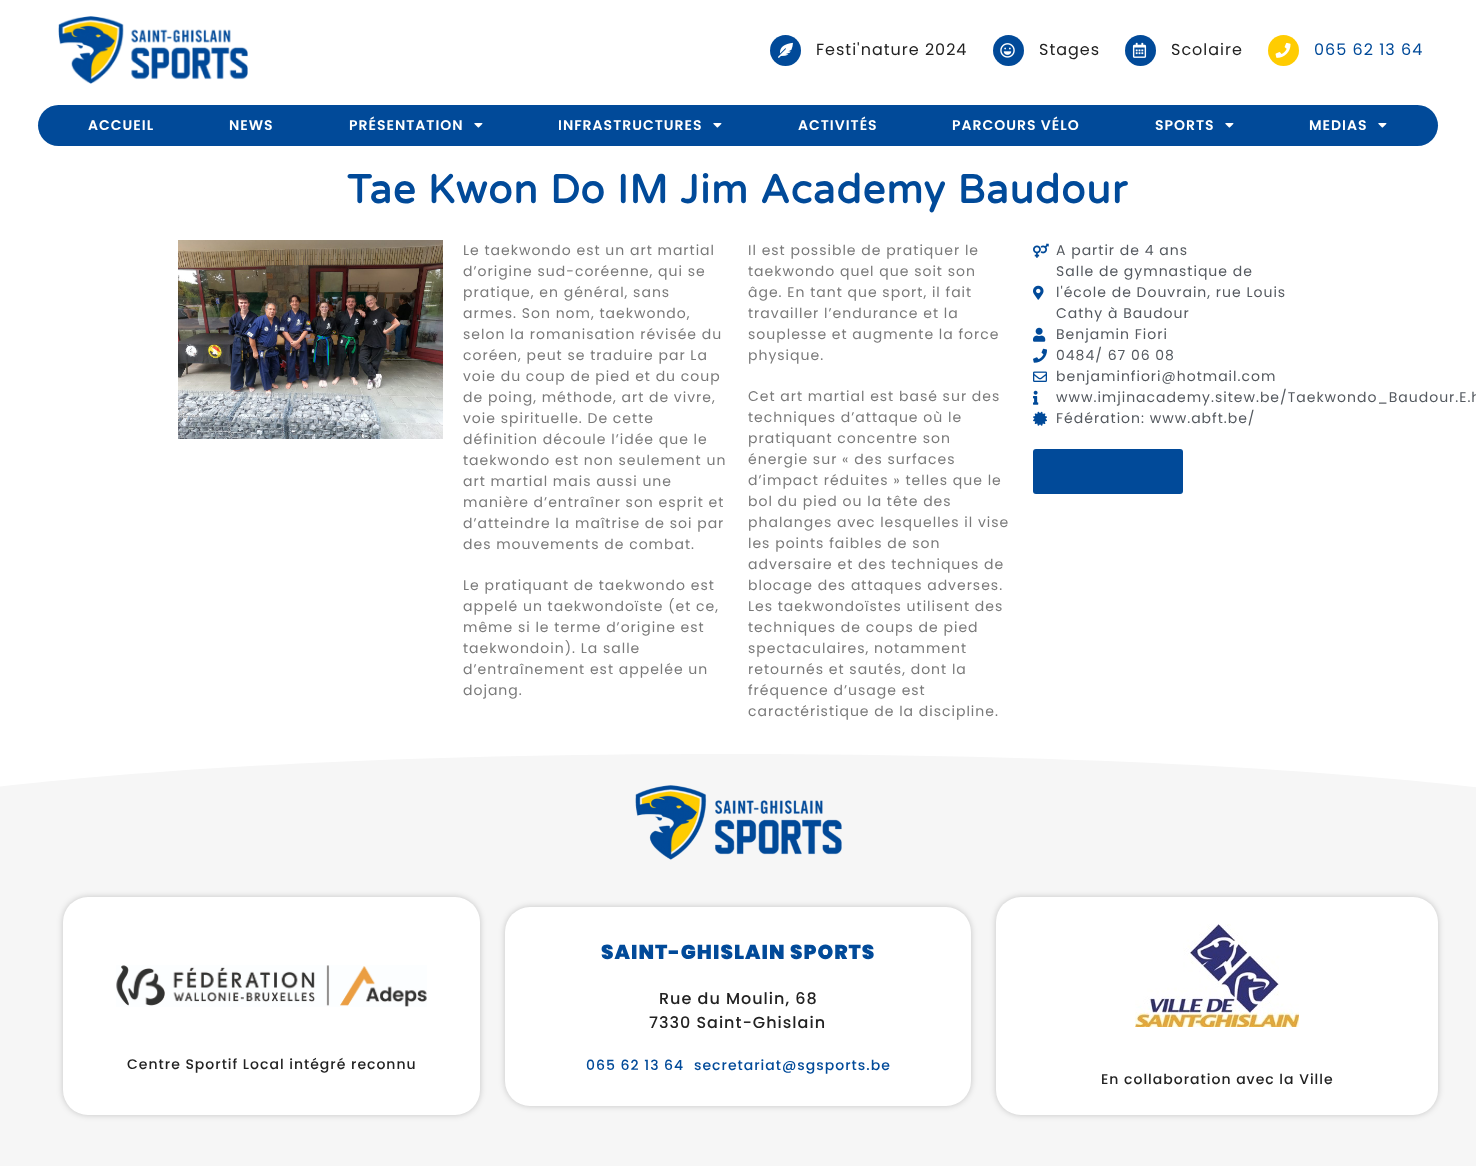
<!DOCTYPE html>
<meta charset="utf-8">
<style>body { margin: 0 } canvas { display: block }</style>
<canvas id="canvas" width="1476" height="1166"></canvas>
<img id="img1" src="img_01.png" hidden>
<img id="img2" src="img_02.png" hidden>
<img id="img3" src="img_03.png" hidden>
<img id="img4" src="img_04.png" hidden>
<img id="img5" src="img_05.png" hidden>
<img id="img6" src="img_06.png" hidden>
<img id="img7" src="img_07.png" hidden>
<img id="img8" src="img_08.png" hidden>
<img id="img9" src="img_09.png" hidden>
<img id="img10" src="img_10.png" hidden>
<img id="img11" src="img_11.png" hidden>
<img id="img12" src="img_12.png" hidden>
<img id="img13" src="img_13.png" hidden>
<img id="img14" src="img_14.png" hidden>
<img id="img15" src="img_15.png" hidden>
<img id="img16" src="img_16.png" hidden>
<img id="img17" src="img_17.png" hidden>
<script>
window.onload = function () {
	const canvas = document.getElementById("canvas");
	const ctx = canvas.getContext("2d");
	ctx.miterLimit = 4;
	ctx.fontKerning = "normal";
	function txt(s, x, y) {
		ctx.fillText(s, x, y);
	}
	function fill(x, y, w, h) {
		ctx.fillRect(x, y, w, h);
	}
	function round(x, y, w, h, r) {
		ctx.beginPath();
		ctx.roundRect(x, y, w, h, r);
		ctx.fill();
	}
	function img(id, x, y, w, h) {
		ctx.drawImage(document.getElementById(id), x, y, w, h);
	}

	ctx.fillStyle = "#FFFFFF";
	fill(0, 0, 1476, 1166);
	img("img1", 58, 16, 190, 68);
	ctx.fillStyle = "#014A99";
	ctx.beginPath();
	ctx.arc(785.5, 50.5, 15.5, 0, Math.PI * 2);
	ctx.fill();
	img("img2", 778, 42, 15, 16);
	ctx.beginPath();
	ctx.arc(1008.5, 50.5, 15.5, 0, Math.PI * 2);
	ctx.fill();
	img("img3", 1000, 43, 15, 15);
	ctx.beginPath();
	ctx.arc(1140.5, 50.5, 15.5, 0, Math.PI * 2);
	ctx.fill();
	img("img4", 1132, 42, 15, 16);
	ctx.fillStyle = "#FFCC01";
	ctx.beginPath();
	ctx.arc(1283.5, 50.5, 15.5, 0, Math.PI * 2);
	ctx.fill();
	img("img5", 1275, 42, 16, 16);
	ctx.fillStyle = "#014A99";
	round(38, 105, 1400, 41, 20.5);
	img("img6", 474, 123, 9, 5);
	img("img6", 713, 123, 9, 5);
	img("img6", 1225, 123, 9, 5);
	img("img6", 1378, 123, 9, 5);
	img("img7", 178, 240, 265, 199);
	img("img8", 1033, 243, 16, 15);
	img("img9", 1033, 285, 11, 15);
	img("img10", 1033, 327, 13, 15);
	img("img11", 1033, 348, 14, 15);
	img("img12", 1033, 371, 14, 11);
	img("img13", 1033, 390, 6, 15);
	img("img14", 1033, 411, 14, 15);
	round(1033, 449, 150, 45, 3);
	ctx.fillStyle = "#F6F6F6";
	fill(0, 754, 1476, 412);
	ctx.fillStyle = "#FFFFFF";
	ctx.beginPath();
	ctx.moveTo(738, 754);
	ctx.bezierCurveTo(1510, 755, 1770, 831, 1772, 851);
	ctx.lineTo(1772, 751);
	ctx.lineTo(-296, 751);
	ctx.lineTo(-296, 850);
	ctx.bezierCurveTo(-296, 832, -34, 753, 738, 754);
	ctx.closePath();
	ctx.fill();
	img("img15", 635, 785, 207, 75);
	ctx.fillStyle = "rgba(0, 0, 0, 0.2)";
	ctx.filter = "blur(3px)";
	ctx.beginPath();
	ctx.roundRect(63, 897, 417, 218, 25);
	ctx.fill();
	ctx.filter = "none";
	ctx.fillStyle = "#FFFFFF";
	round(63, 897, 417, 218, 25);
	img("img16", 116, 965, 311, 42);
	ctx.fillStyle = "rgba(0, 0, 0, 0.2)";
	ctx.filter = "blur(3px)";
	ctx.beginPath();
	ctx.roundRect(505, 907, 466, 199, 25);
	ctx.fill();
	ctx.filter = "none";
	ctx.fillStyle = "#FFFFFF";
	round(505, 907, 466, 199, 25);
	ctx.fillStyle = "rgba(0, 0, 0, 0.2)";
	ctx.filter = "blur(3px)";
	ctx.beginPath();
	ctx.roundRect(996, 897, 442, 218, 25);
	ctx.fill();
	ctx.filter = "none";
	ctx.fillStyle = "#FFFFFF";
	round(996, 897, 442, 218, 25);
	img("img17", 1135, 924, 164, 103);
	ctx.letterSpacing = "1px";
	ctx.font = "16px Poppins";
	ctx.fillStyle = "#222222";
	txt("Festi'nature 2024", 816, 55);
	txt("Stages", 1039, 55);
	txt("Scolaire", 1171, 55);
	ctx.fillStyle = "#014A99";
	txt("065 62 13 64", 1314, 55);
	ctx.font = "600 14px Poppins";
	ctx.fillStyle = "#FFFFFF";
	txt("ACCUEIL", 88, 130);
	txt("NEWS", 229, 130);
	txt("PRÉSENTATION", 349, 130);
	txt("INFRASTRUCTURES", 558, 130);
	txt("ACTIVITÉS", 798, 130);
	txt("PARCOURS VÉLO", 952, 130);
	txt("SPORTS", 1155, 130);
	txt("MEDIAS", 1309, 130);
	ctx.font = "bold 40px Varela Round";
	ctx.fillStyle = "#014A99";
	txt("Tae Kwon Do IM Jim Academy Baudour", 347, 203);
	ctx.font = "14px Poppins";
	ctx.fillStyle = "#7A7A7A";
	txt("Le taekwondo est un art martial", 463, 255);
	txt("d’origine sud-coréenne, qui se", 463, 276);
	txt("pratique, en général, sans", 463, 297);
	txt("armes. Son nom, taekwondo,", 463, 318);
	txt("selon la romanisation révisée du", 463, 339);
	txt("coréen, peut se traduire par La", 463, 360);
	txt("voie du coup de pied et du coup", 463, 381);
	txt("de poing, méthode, art de vivre,", 463, 402);
	txt("voie spirituelle. De cette", 463, 423);
	txt("définition découle l’idée que le", 463, 444);
	txt("taekwondo est non seulement un", 463, 465);
	txt("art martial mais aussi une", 463, 486);
	txt("manière d’entraîner son esprit et", 463, 507);
	txt("d’atteindre la maîtrise de soi par", 463, 528);
	txt("des mouvements de combat.", 463, 549);
	txt("Le pratiquant de taekwondo est", 463, 590);
	txt("appelé un taekwondoïste (et ce,", 463, 611);
	txt("même si le terme d’origine est", 463, 632);
	txt("taekwondoin). La salle", 463, 653);
	txt("d’entraînement est appelée un", 463, 674);
	txt("dojang.", 463, 695);
	txt("Il est possible de pratiquer le", 748, 255);
	txt("taekwondo quel que soit son", 748, 276);
	txt("âge. En tant que sport, il fait", 748, 297);
	txt("travailler l’endurance et la", 748, 318);
	txt("souplesse et augmente la force", 748, 339);
	txt("physique.", 748, 360);
	txt("Cet art martial est basé sur des", 748, 401);
	txt("techniques d’attaque où le", 748, 422);
	txt("pratiquant concentre son", 748, 443);
	txt("énergie sur « des surfaces", 748, 464);
	txt("d’impact réduites » telles que le", 748, 485);
	txt("bol du pied ou la tête des", 748, 506);
	txt("phalanges avec lesquelles il vise", 748, 527);
	txt("les points faibles de son", 748, 548);
	txt("adversaire et des techniques de", 748, 569);
	txt("blocage des attaques adverses.", 748, 590);
	txt("Les taekwondoïstes utilisent des", 748, 611);
	txt("techniques de coups de pied", 748, 632);
	txt("spectaculaires, notamment", 748, 653);
	txt("retournés et sautés, dont la", 748, 674);
	txt("fréquence d’usage est", 748, 695);
	txt("caractéristique de la discipline.", 748, 716);
	ctx.fillStyle = "#54595F";
	txt("A partir de 4 ans", 1056, 255);
	txt("Salle de gymnastique de", 1056, 276);
	txt("l'école de Douvrain, rue Louis", 1056, 297);
	txt("Cathy à Baudour", 1056, 318);
	txt("Benjamin Fiori", 1056, 339);
	txt("0484/ 67 06 08", 1056, 360);
	txt("benjaminfiori@hotmail.com", 1056, 381);
	txt("www.imjinacademy.sitew.be/Taekwondo_Baudour.E.h", 1056, 402);
	txt("Fédération: www.abft.be/", 1056, 423);
	ctx.font = "500 14px Poppins";
	ctx.fillStyle = "#222222";
	txt("Centre Sportif Local intégré reconnu", 127, 1069);
	ctx.font = "900 20px Poppins";
	ctx.fillStyle = "#014A99";
	txt("SAINT-GHISLAIN SPORTS", 601, 959);
	ctx.font = "500 16px Poppins";
	ctx.fillStyle = "#222222";
	txt("Rue du Moulin, 68", 659, 1004);
	txt("7330 Saint-Ghislain", 649, 1028);
	ctx.font = "500 14px Poppins";
	ctx.fillStyle = "#014A99";
	txt("065 62 13 64", 586, 1070);
	txt("secretariat@sgsports.be", 694, 1070);
	ctx.fillStyle = "#222222";
	txt("En collaboration avec la Ville", 1101, 1084);
};
</script>
